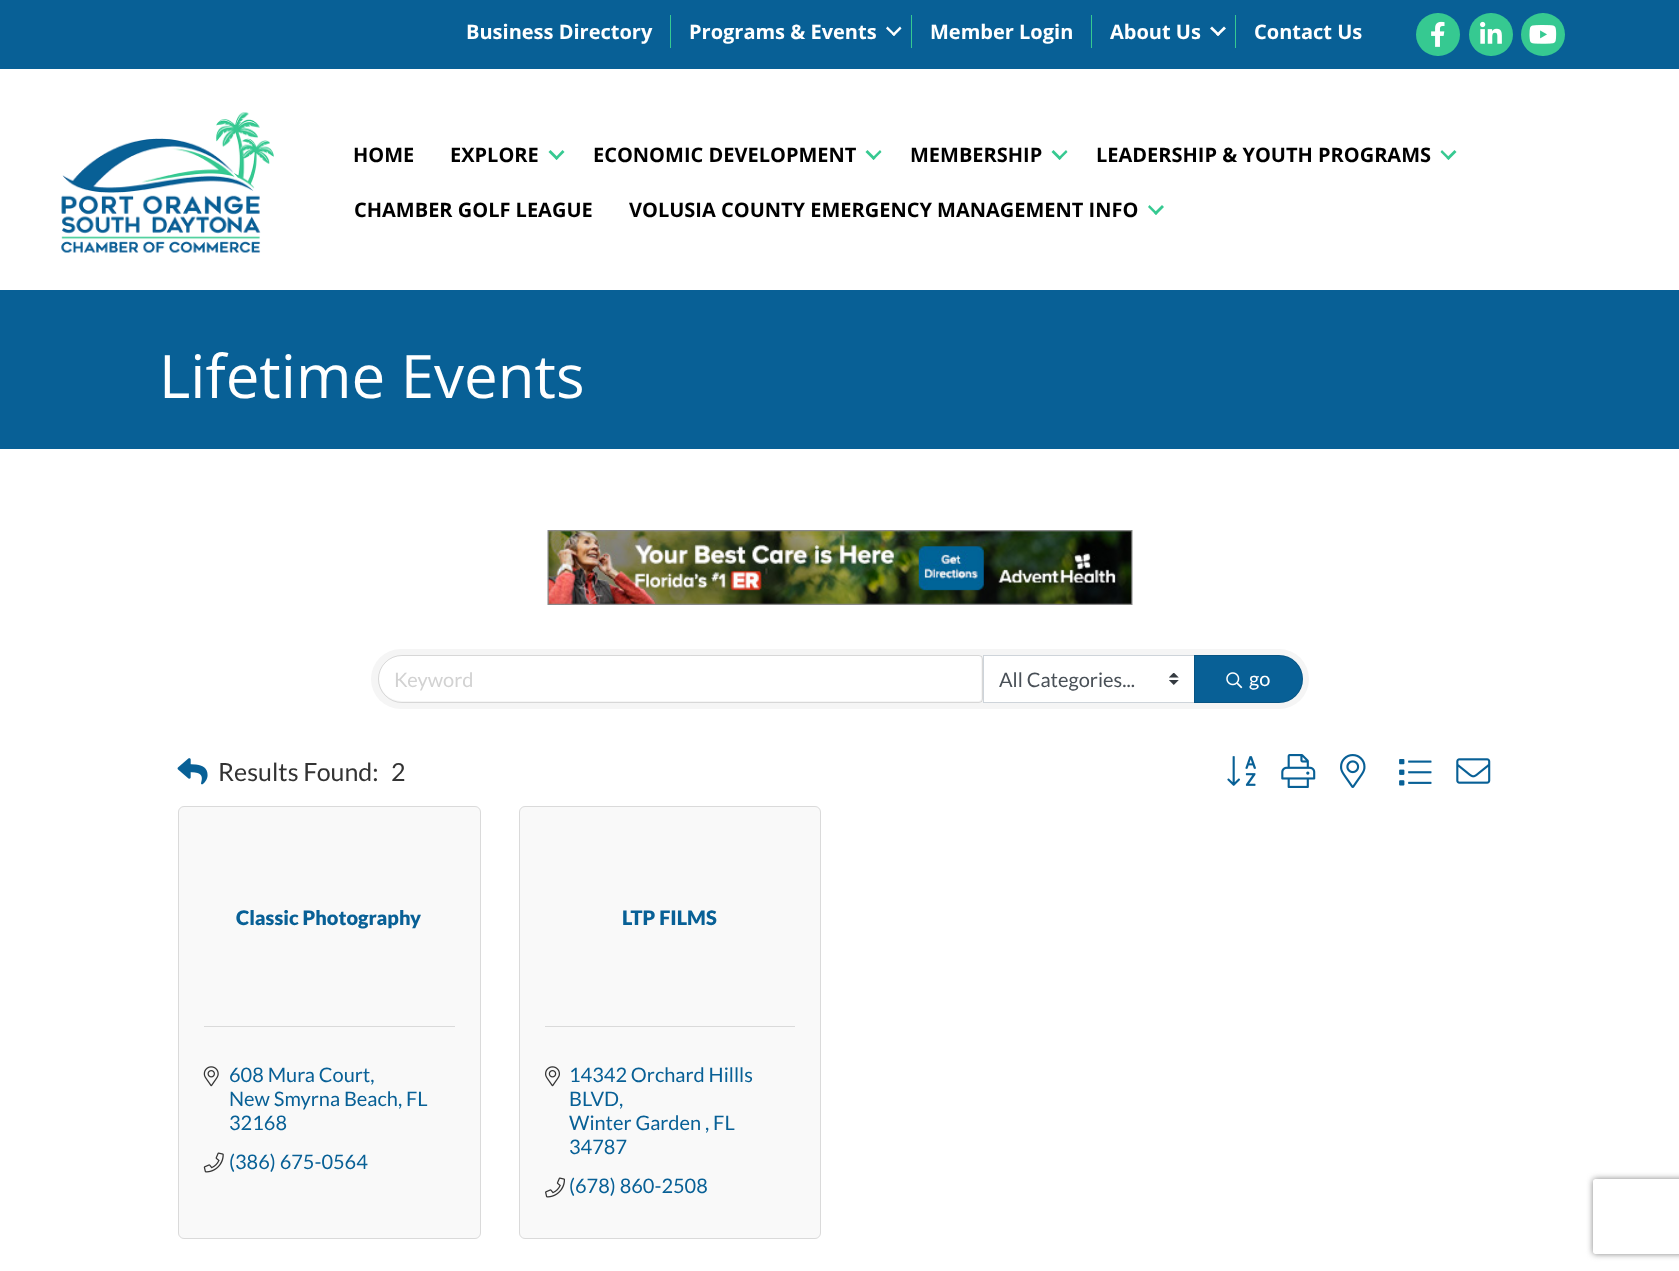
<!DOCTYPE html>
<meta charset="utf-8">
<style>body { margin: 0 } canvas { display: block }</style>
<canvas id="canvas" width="1679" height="1271"></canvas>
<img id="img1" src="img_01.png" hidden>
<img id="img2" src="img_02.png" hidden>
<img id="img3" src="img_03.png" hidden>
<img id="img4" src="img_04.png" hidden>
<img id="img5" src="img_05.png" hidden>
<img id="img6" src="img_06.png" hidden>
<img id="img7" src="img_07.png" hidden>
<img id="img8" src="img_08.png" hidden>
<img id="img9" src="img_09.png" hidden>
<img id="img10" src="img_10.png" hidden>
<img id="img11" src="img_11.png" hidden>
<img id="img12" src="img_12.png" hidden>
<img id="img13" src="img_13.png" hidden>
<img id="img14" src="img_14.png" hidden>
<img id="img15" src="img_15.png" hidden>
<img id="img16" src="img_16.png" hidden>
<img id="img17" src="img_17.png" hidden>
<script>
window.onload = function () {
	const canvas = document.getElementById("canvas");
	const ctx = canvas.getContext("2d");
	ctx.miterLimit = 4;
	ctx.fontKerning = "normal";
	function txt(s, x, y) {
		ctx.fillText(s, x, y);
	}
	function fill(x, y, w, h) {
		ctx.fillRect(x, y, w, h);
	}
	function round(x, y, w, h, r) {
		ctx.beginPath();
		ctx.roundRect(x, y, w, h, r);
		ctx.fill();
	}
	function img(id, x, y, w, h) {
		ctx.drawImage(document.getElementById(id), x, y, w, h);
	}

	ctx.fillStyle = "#FFFFFF";
	fill(0, 0, 1679, 1271);
	ctx.fillStyle = "#086096";
	fill(0, 0, 1679, 69);
	ctx.fillStyle = "#36C991";
	fill(670, 15, 1, 33);
	ctx.fillStyle = "#FFFFFF";
	ctx.beginPath();
	ctx.moveTo(900, 26.5);
	ctx.lineTo(901.5, 28.5);
	ctx.lineTo(894, 36);
	ctx.lineTo(892, 34.5);
	ctx.closePath();
	ctx.fill();
	ctx.beginPath();
	ctx.moveTo(887.5, 26.5);
	ctx.lineTo(895.5, 34.5);
	ctx.lineTo(894, 36);
	ctx.lineTo(886, 28.5);
	ctx.closePath();
	ctx.fill();
	ctx.fillStyle = "#36C991";
	fill(911, 15, 1, 33);
	fill(1091, 15, 1, 33);
	ctx.fillStyle = "#FFFFFF";
	ctx.beginPath();
	ctx.moveTo(1224, 26.5);
	ctx.lineTo(1226, 28.5);
	ctx.lineTo(1218, 36);
	ctx.lineTo(1216, 34.5);
	ctx.closePath();
	ctx.fill();
	ctx.beginPath();
	ctx.moveTo(1212, 26.5);
	ctx.lineTo(1220, 34.5);
	ctx.lineTo(1218, 36);
	ctx.lineTo(1210, 28.5);
	ctx.closePath();
	ctx.fill();
	ctx.fillStyle = "#36C991";
	fill(1235, 15, 1, 33);
	round(1416, 13, 44, 43, 21.5);
	img("img1", 1431, 21, 14, 26);
	round(1469, 13, 44, 43, 21.5);
	img("img2", 1480, 21, 22, 23);
	round(1521, 13, 44, 43, 21.5);
	img("img3", 1529, 25, 28, 19);
	img("img4", 61, 112, 213, 141);
	ctx.beginPath();
	ctx.moveTo(562.5, 150);
	ctx.lineTo(564.5, 152);
	ctx.lineTo(556.5, 160);
	ctx.lineTo(555, 158);
	ctx.closePath();
	ctx.fill();
	ctx.beginPath();
	ctx.moveTo(550.5, 150);
	ctx.lineTo(558.5, 158);
	ctx.lineTo(556.5, 160);
	ctx.lineTo(548.5, 152);
	ctx.closePath();
	ctx.fill();
	ctx.beginPath();
	ctx.moveTo(880, 150);
	ctx.lineTo(881.5, 152);
	ctx.lineTo(873.5, 160);
	ctx.lineTo(872, 158);
	ctx.closePath();
	ctx.fill();
	ctx.beginPath();
	ctx.moveTo(867.5, 150);
	ctx.lineTo(875.5, 158);
	ctx.lineTo(873.5, 160);
	ctx.lineTo(865.5, 152);
	ctx.closePath();
	ctx.fill();
	ctx.beginPath();
	ctx.moveTo(1066, 150);
	ctx.lineTo(1067.5, 152);
	ctx.lineTo(1059.5, 160);
	ctx.lineTo(1058, 158);
	ctx.closePath();
	ctx.fill();
	ctx.beginPath();
	ctx.moveTo(1053.5, 150);
	ctx.lineTo(1061.5, 158);
	ctx.lineTo(1059.5, 160);
	ctx.lineTo(1051.5, 152);
	ctx.closePath();
	ctx.fill();
	ctx.beginPath();
	ctx.moveTo(1454.5, 150);
	ctx.lineTo(1456.5, 152);
	ctx.lineTo(1448.5, 160);
	ctx.lineTo(1446.5, 158);
	ctx.closePath();
	ctx.fill();
	ctx.beginPath();
	ctx.moveTo(1442, 150);
	ctx.lineTo(1450, 158);
	ctx.lineTo(1448.5, 160);
	ctx.lineTo(1440.5, 152);
	ctx.closePath();
	ctx.fill();
	ctx.beginPath();
	ctx.moveTo(1162, 205);
	ctx.lineTo(1164, 207);
	ctx.lineTo(1156, 215);
	ctx.lineTo(1154, 213);
	ctx.closePath();
	ctx.fill();
	ctx.beginPath();
	ctx.moveTo(1149.5, 205);
	ctx.lineTo(1157.5, 213);
	ctx.lineTo(1156, 215);
	ctx.lineTo(1148, 207);
	ctx.closePath();
	ctx.fill();
	ctx.fillStyle = "#086096";
	fill(0, 290, 1679, 159);
	img("img5", 547, 530, 586, 75);
	ctx.fillStyle = "#F5F5F5";
	round(371, 649, 938, 60, 30);
	ctx.fillStyle = "#FFFFFF";
	ctx.beginPath();
	ctx.roundRect(379, 656, 602, 45, [22.5, 2.5, 2.5, 22.5]);
	ctx.fill();
	ctx.beginPath();
	ctx.roundRect(378.5, 655.5, 604, 47, [23.5, 3.5, 3.5, 23.5]);
	ctx.strokeStyle = "rgba(0, 0, 0, 0.12)";
	ctx.stroke();
	fill(984, 656, 210, 46);
	img("img6", 1169, 673, 10, 12);
	ctx.strokeStyle = "#CED4DA";
	ctx.strokeRect(983.5, 655.5, 211, 47);
	ctx.fillStyle = "#086096";
	ctx.beginPath();
	ctx.roundRect(1194, 655, 109, 48, [0, 24, 24, 0]);
	ctx.fill();
	ctx.beginPath();
	ctx.roundRect(1194.5, 655.5, 108, 47, [0, 23.5, 23.5, 0]);
	ctx.strokeStyle = "rgba(0, 0, 0, 0.12)";
	ctx.stroke();
	img("img7", 1226, 672, 17, 17);
	img("img8", 177, 758, 31, 27);
	img("img9", 1227, 756, 29, 30);
	img("img10", 1281, 754, 35, 34);
	img("img11", 1340, 754, 26, 34);
	img("img12", 1399, 759, 33, 27);
	img("img13", 1456, 758, 35, 26);
	ctx.fillStyle = "#F9F9F9";
	ctx.beginPath();
	ctx.roundRect(178.5, 806.5, 302, 432, 5.5);
	ctx.fill();
	ctx.strokeStyle = "#DADADA";
	ctx.stroke();
	ctx.fillStyle = "#DADADA";
	fill(204, 1026, 251, 1);
	img("img14", 203, 1066, 16, 21);
	img("img15", 203, 1152, 21, 21);
	ctx.fillStyle = "#F9F9F9";
	ctx.beginPath();
	ctx.roundRect(519.5, 806.5, 301, 432, 5.5);
	ctx.fill();
	ctx.stroke();
	ctx.fillStyle = "#DADADA";
	fill(545, 1026, 250, 1);
	img("img16", 545, 1066, 15, 21);
	img("img17", 545, 1177, 20, 21);
	ctx.save();
	ctx.beginPath();
	ctx.moveTo(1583, 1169);
	ctx.lineTo(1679, 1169);
	ctx.lineTo(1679, 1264);
	ctx.lineTo(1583, 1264);
	ctx.closePath();
	ctx.moveTo(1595.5, 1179);
	ctx.lineTo(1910.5, 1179);
	ctx.bezierCurveTo(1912, 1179, 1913, 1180, 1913, 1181.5);
	ctx.lineTo(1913, 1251.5);
	ctx.bezierCurveTo(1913, 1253, 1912, 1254, 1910.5, 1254);
	ctx.lineTo(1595.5, 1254);
	ctx.bezierCurveTo(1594, 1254, 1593, 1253, 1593, 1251.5);
	ctx.lineTo(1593, 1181.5);
	ctx.bezierCurveTo(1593, 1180, 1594, 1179, 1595.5, 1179);
	ctx.closePath();
	ctx.clip("evenodd");
	ctx.fillStyle = "#808080";
	ctx.filter = "blur(3px)";
	ctx.beginPath();
	ctx.roundRect(1593, 1179, 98, 75, 2.5);
	ctx.fill();
	ctx.filter = "none";
	ctx.restore();
	ctx.font = "bold 20px Open Sans";
	ctx.fillStyle = "#FFFFFF";
	txt("Business Directory", 466, 39);
	txt("Programs & Events", 689, 39);
	txt("Member Login", 930, 39);
	txt("About Us", 1110, 39);
	txt("Contact Us", 1254, 39);
	ctx.fillStyle = "#000000";
	txt("HOME", 353, 162);
	txt("EXPLORE", 450, 162);
	txt("ECONOMIC DEVELOPMENT", 593, 162);
	txt("MEMBERSHIP", 910, 162);
	txt("LEADERSHIP & YOUTH PROGRAMS", 1096, 162);
	txt("CHAMBER GOLF LEAGUE", 354, 217);
	txt("VOLUSIA COUNTY EMERGENCY MANAGEMENT INFO", 629, 217);
	ctx.font = "60px Open Sans";
	ctx.fillStyle = "#FFFFFF";
	txt("Lifetime Events", 159, 398);
	ctx.font = "20px Lato";
	ctx.fillStyle = "#D2D2D2";
	txt("Keyword", 394, 687);
	ctx.fillStyle = "#495057";
	txt("All Categories...", 999, 687);
	ctx.fillStyle = "#FFFFFF";
	txt("go", 1249, 686);
	ctx.font = "25px Lato";
	ctx.fillStyle = "#333333";
	txt("Results Found:", 218, 781);
	txt("2", 391, 781);
	ctx.font = "900 20px Lato";
	ctx.fillStyle = "#086096";
	txt("Classic Photography", 236, 925);
	ctx.font = "20px Lato";
	txt("608 Mura Court,", 229, 1082);
	txt("New Smyrna Beach, FL", 229, 1106);
	txt("32168", 229, 1130);
	txt("(386) 675-0564", 229, 1169);
	ctx.font = "900 20px Lato";
	txt("LTP FILMS", 622, 925);
	ctx.font = "20px Lato";
	txt("14342 Orchard Hillls", 569, 1082);
	txt("BLVD", 569, 1106);
	txt(",", 619, 1106);
	txt("Winter Garden , FL", 569, 1130);
	txt("34787", 569, 1154);
	txt("(678) 860-2508", 569, 1193);
};
</script>
